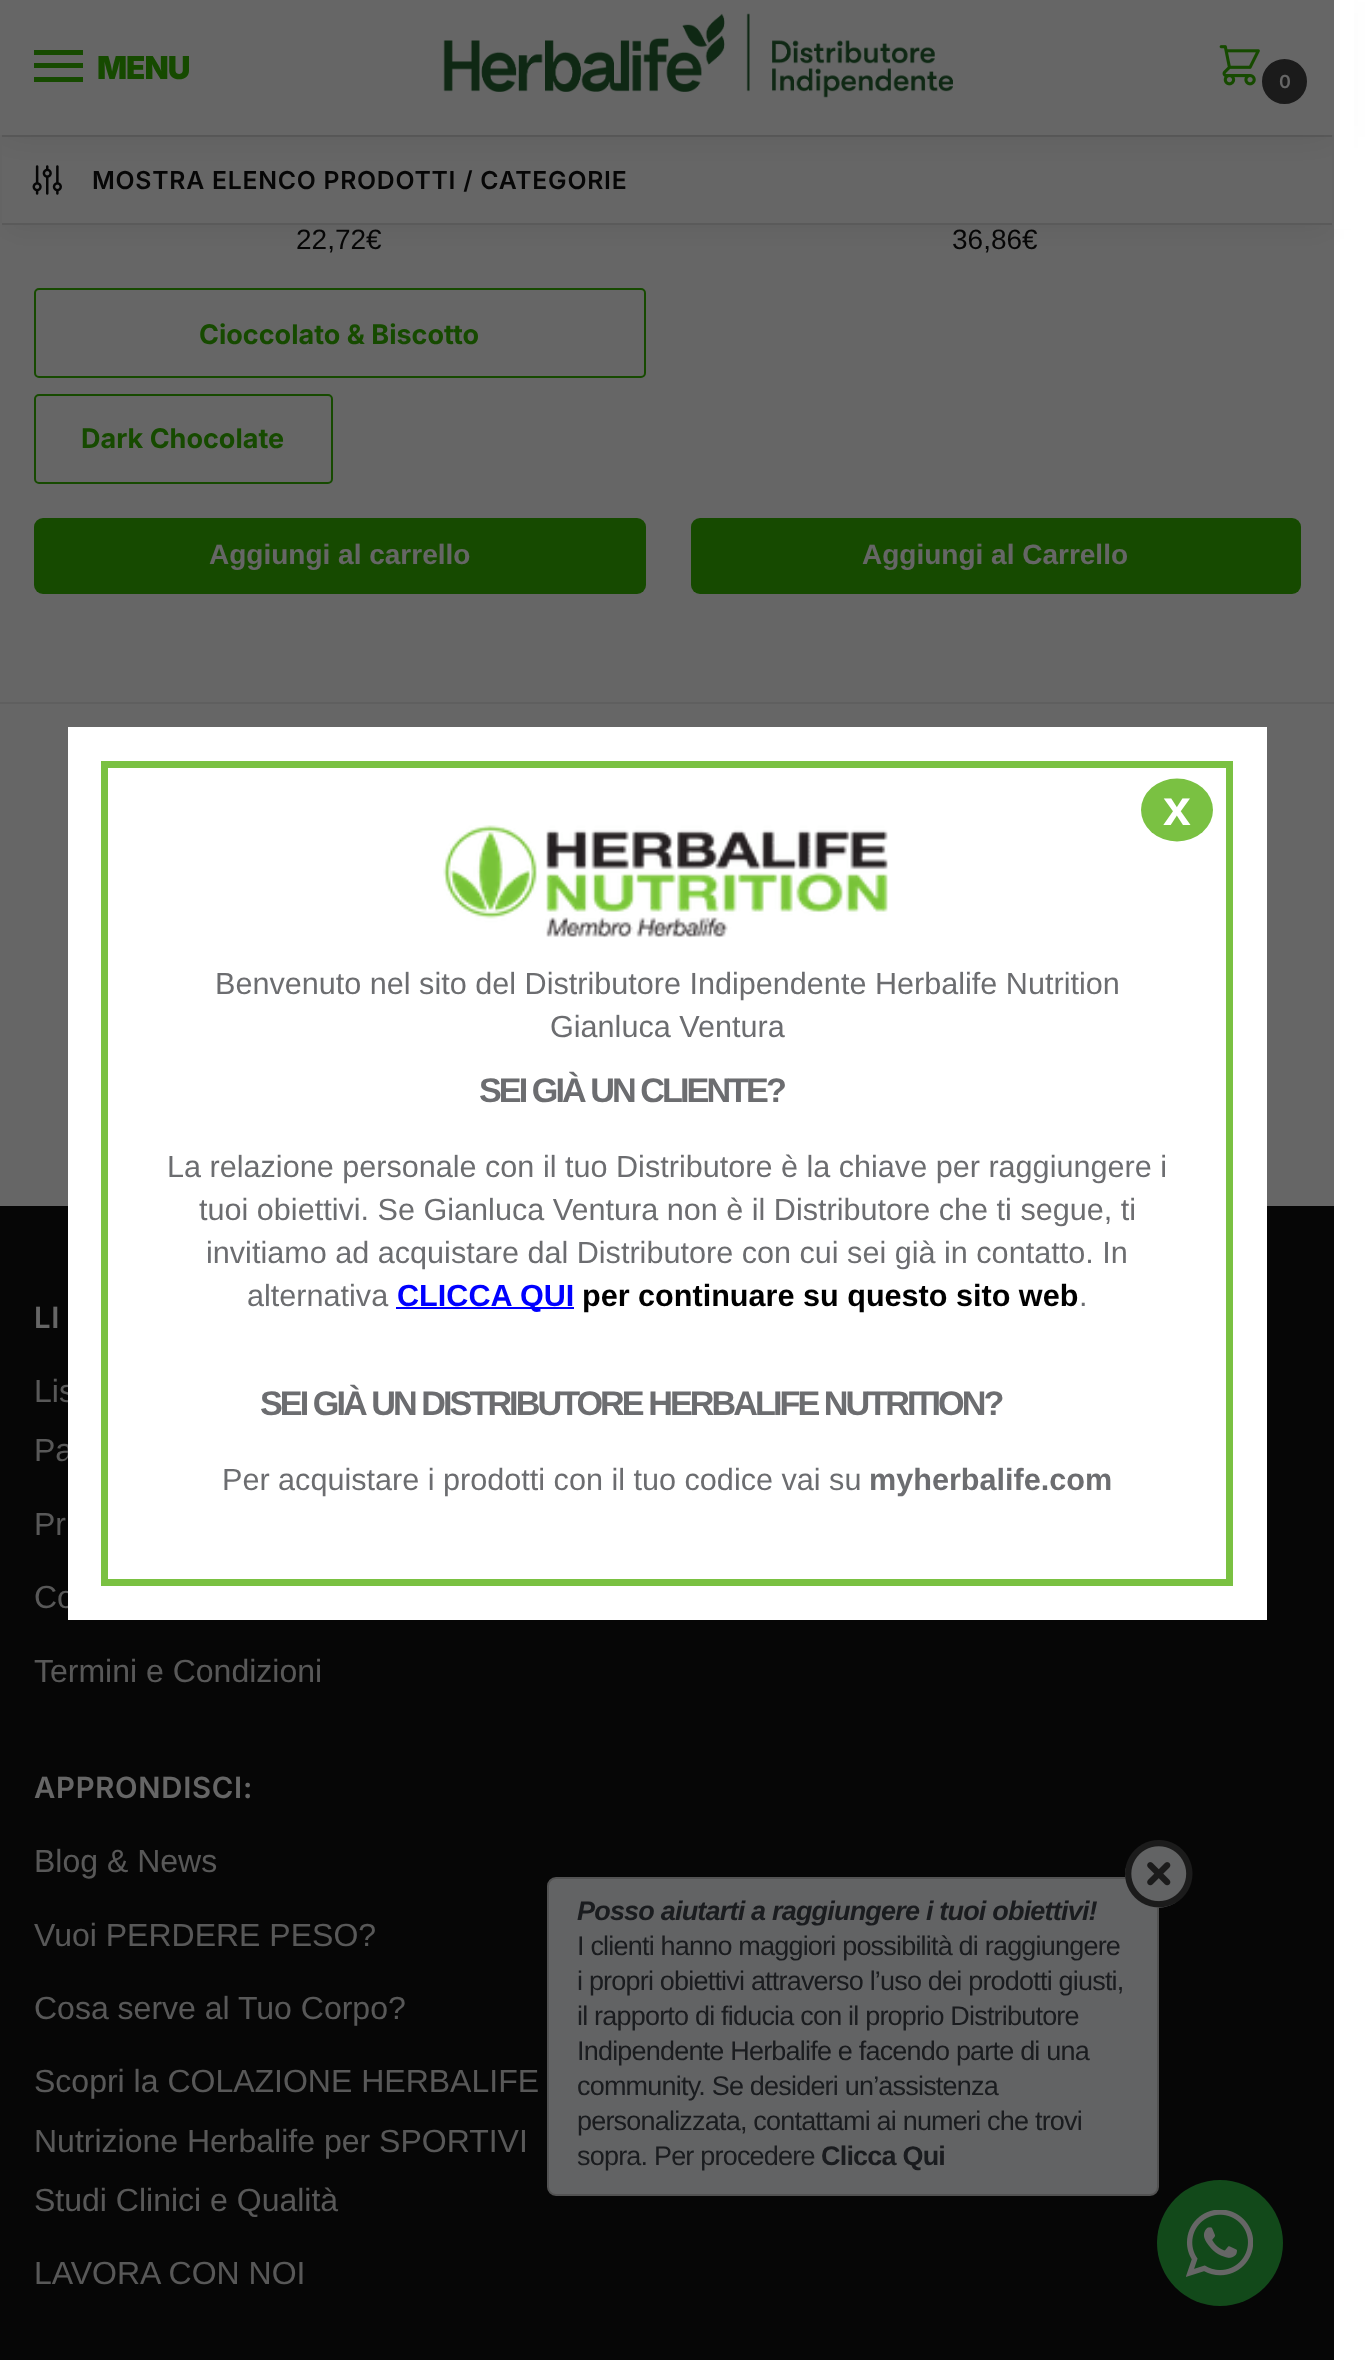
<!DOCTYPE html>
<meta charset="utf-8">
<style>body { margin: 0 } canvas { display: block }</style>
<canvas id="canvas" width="1366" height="2360"></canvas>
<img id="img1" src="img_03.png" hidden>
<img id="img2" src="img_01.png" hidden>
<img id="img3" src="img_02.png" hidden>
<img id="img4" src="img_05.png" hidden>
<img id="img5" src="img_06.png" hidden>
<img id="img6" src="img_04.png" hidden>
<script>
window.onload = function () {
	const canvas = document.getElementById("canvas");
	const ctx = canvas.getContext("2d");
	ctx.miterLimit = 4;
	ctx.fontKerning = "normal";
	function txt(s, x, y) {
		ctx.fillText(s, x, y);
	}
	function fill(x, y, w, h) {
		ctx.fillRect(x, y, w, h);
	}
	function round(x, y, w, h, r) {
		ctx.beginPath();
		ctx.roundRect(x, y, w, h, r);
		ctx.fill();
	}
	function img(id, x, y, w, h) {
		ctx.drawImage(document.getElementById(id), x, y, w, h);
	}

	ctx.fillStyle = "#FFFFFF";
	fill(0, 0, 1366, 2360);
	ctx.fillStyle = "rgba(0, 0, 0, 0.06)";
	ctx.filter = "blur(13.5px)";
	ctx.beginPath();
	ctx.rect(7, 149, 1321, 81);
	ctx.fill();
	ctx.filter = "none";
	ctx.fillStyle = "#FFFFFF";
	fill(2, 137, 1330, 86);
	ctx.fillStyle = "#E2E2E2";
	fill(2, 135, 1330, 2);
	img("img1", 32, 165, 30, 30);
	ctx.fillStyle = "rgba(0, 0, 0, 0.08)";
	ctx.filter = "blur(17px)";
	ctx.beginPath();
	ctx.rect(0, 2, 1334, 135);
	ctx.fill();
	ctx.filter = "none";
	ctx.fillStyle = "#FFFFFF";
	fill(0, 0, 1334, 135);
	ctx.fillStyle = "#38BA00";
	fill(34, 50, 49, 5);
	fill(34, 63, 49, 5);
	fill(34, 77, 49, 5);
	img("img2", 443, 13, 510, 85);
	img("img3", 1219, 45, 41, 41);
	ctx.fillStyle = "#444444";
	ctx.beginPath();
	ctx.arc(1284.5, 81.5, 21.5, 0, Math.PI * 2);
	ctx.fill();
	ctx.strokeStyle = "#444444";
	ctx.lineWidth = 2;
	ctx.stroke();
	ctx.fillStyle = "#FFFFFF";
	fill(1334, 0, 20, 229);
	ctx.fillStyle = "#E2E2E2";
	fill(2, 223, 1330, 2);
	ctx.beginPath();
	ctx.roundRect(35, 289, 610, 88, 4);
	ctx.strokeStyle = "#38BA00";
	ctx.stroke();
	ctx.beginPath();
	ctx.roundRect(35, 395, 297, 88, 4);
	ctx.stroke();
	ctx.fillStyle = "#38BA00";
	round(34, 518, 612, 76, 9);
	round(691, 518, 610, 76, 9);
	ctx.fillStyle = "#EEEEEE";
	fill(0, 702, 1334, 2);
	ctx.fillStyle = "#111111";
	fill(0, 1206, 1334, 1154);
	ctx.fillStyle = "#2DB742";
	ctx.beginPath();
	ctx.arc(1220, 2243, 63, 0, Math.PI * 2);
	ctx.fill();
	ctx.fillStyle = "#F5F7F9";
	ctx.beginPath();
	ctx.roundRect(548, 1878, 610, 317, 8);
	ctx.fill();
	ctx.strokeStyle = "#CCCCCC";
	ctx.stroke();
	ctx.beginPath();
	ctx.arc(1157.5, 1875.5, 32.5, 0, Math.PI * 2);
	ctx.fill();
	img("img4", 1125, 1840, 68, 68);
	img("img5", 1186, 2210, 67, 67);
	ctx.letterSpacing = "-1px";
	ctx.font = "900 31.5px Inter";
	ctx.fillStyle = "#38BA00";
	txt("MENU", 97, 79);
	ctx.letterSpacing = "0px";
	ctx.font = "600 18px Inter";
	ctx.fillStyle = "#FFFFFF";
	txt("0", 1279, 88);
	ctx.letterSpacing = "0.75px";
	ctx.font = "600 24.75px Inter";
	ctx.fillStyle = "#111111";
	txt("MOSTRA ELENCO PRODOTTI / CATEGORIE", 92, 189);
	ctx.letterSpacing = "0px";
	ctx.font = "28px Liberation Sans";
	txt("22,72€", 296, 249);
	ctx.font = "bold 27px Inter";
	ctx.fillStyle = "#38BA00";
	txt("Cioccolato & Biscotto", 199, 344);
	txt("Dark Chocolate", 81, 448);
	ctx.font = "bold 28px Liberation Sans";
	ctx.fillStyle = "#FFFFFF";
	txt("Aggiungi al carrello", 209, 564);
	ctx.font = "28px Liberation Sans";
	ctx.fillStyle = "#111111";
	txt("36,86€", 952, 249);
	ctx.font = "bold 28px Liberation Sans";
	ctx.fillStyle = "#FFFFFF";
	txt("Aggiungi al Carrello", 862, 564);
	ctx.letterSpacing = "0.75px";
	ctx.font = "600 29.25px Inter";
	txt("LI", 34, 1328);
	ctx.letterSpacing = "0px";
	ctx.font = "32px Liberation Sans";
	ctx.fillStyle = "#DBDBDB";
	txt("Lis", 34, 1402);
	txt("Pa", 34, 1461);
	txt("Pr", 34, 1535);
	txt("Co", 34, 1608);
	txt("Termini e Condizioni", 34, 1682);
	ctx.letterSpacing = "0.75px";
	ctx.font = "600 29.25px Inter";
	ctx.fillStyle = "#FFFFFF";
	txt("APPRONDISCI:", 34, 1798);
	ctx.letterSpacing = "0px";
	ctx.font = "32px Liberation Sans";
	ctx.fillStyle = "#DBDBDB";
	txt("Blog & News", 34, 1872);
	txt("Vuoi PERDERE PESO?", 34, 1946);
	txt("Cosa serve al Tuo Corpo?", 34, 2019);
	txt("Scopri la COLAZIONE HERBALIFE", 34, 2092);
	txt("Nutrizione Herbalife per SPORTIVI", 34, 2152);
	txt("Studi Clinici e Qualità", 34, 2211);
	txt("LAVORA CON NOI", 34, 2284);
	ctx.letterSpacing = "-0.8px";
	ctx.font = "italic bold 27px Liberation Sans";
	ctx.fillStyle = "#43474E";
	txt("Posso aiutarti a raggiungere i tuoi obiettivi!", 577, 1920);
	ctx.font = "27px Liberation Sans";
	txt("I clienti hanno maggiori possibilità di raggiungere", 577, 1955);
	txt("i propri obiettivi attraverso l’uso dei prodotti giusti,", 577, 1990);
	txt("il rapporto di fiducia con il proprio Distributore", 577, 2025);
	txt("Indipendente Herbalife e facendo parte di una", 577, 2060);
	txt("community. Se desideri un’assistenza", 577, 2095);
	txt("personalizzata, contattami ai numeri che trovi", 577, 2130);
	txt("sopra. Per procedere", 577, 2165);
	ctx.font = "bold 27px Liberation Sans";
	txt("Clicca Qui", 821, 2165);
	ctx.fillStyle = "rgba(0, 0, 0, 0.6)";
	fill(0, 0, 1334, 2360);
	ctx.fillStyle = "#FFFFFF";
	fill(68, 727, 1199, 893);
	ctx.strokeStyle = "#7AC142";
	ctx.lineWidth = 7;
	ctx.strokeRect(104.5, 764.5, 1125, 818);
	ctx.letterSpacing = "0px";
	ctx.font = "bold 30.6px Liberation Sans";
	ctx.fillStyle = "#6C6D70";
	txt("myherbalife.com", 869, 1490);
	ctx.font = "30.6px Liberation Sans";
	txt("Per acquistare i prodotti con il tuo codice vai su", 222, 1490);
	ctx.letterSpacing = "-2.95px";
	ctx.font = "bold 34.2px Liberation Sans";
	txt("SEI GIÀ UN DISTRIBUTORE HERBALIFE NUTRITION?", 260, 1415);
	ctx.letterSpacing = "0px";
	ctx.font = "30.6px Liberation Sans";
	txt(".", 1079, 1306);
	ctx.font = "bold 30.6px Liberation Sans";
	ctx.fillStyle = "#000000";
	txt("per continuare su questo sito web", 582, 1306);
	ctx.fillStyle = "#0000FF";
	fill(396, 1307, 178, 2);
	txt("CLICCA QUI", 397, 1306);
	ctx.font = "30.6px Liberation Sans";
	ctx.fillStyle = "#6C6D70";
	txt("alternativa", 247, 1306);
	txt("invitiamo ad acquistare dal Distributore con cui sei già in contatto. In", 206, 1263);
	txt("tuoi obiettivi. Se Gianluca Ventura non è il Distributore che ti segue, ti", 199, 1220);
	txt("La relazione personale con il tuo Distributore è la chiave per raggiungere i", 167, 1177);
	ctx.letterSpacing = "-2.95px";
	ctx.font = "bold 34.2px Liberation Sans";
	txt("SEI GIÀ UN CLIENTE?", 479, 1102);
	ctx.fillStyle = "#7AC142";
	ctx.beginPath();
	ctx.ellipse(1177, 810, 36, 31.5, 0, 0, Math.PI * 2);
	ctx.fill();
	ctx.letterSpacing = "0px";
	ctx.font = "bold 50px Liberation Sans";
	ctx.fillStyle = "#FFFFFF";
	txt("x", 1163, 825);
	ctx.font = "30.6px Liberation Sans";
	ctx.fillStyle = "#6C6D70";
	txt("Gianluca Ventura", 550, 1037);
	txt("Benvenuto nel sito del Distributore Indipendente Herbalife Nutrition", 215, 994);
	img("img6", 443, 825, 445, 113);
};
</script>
